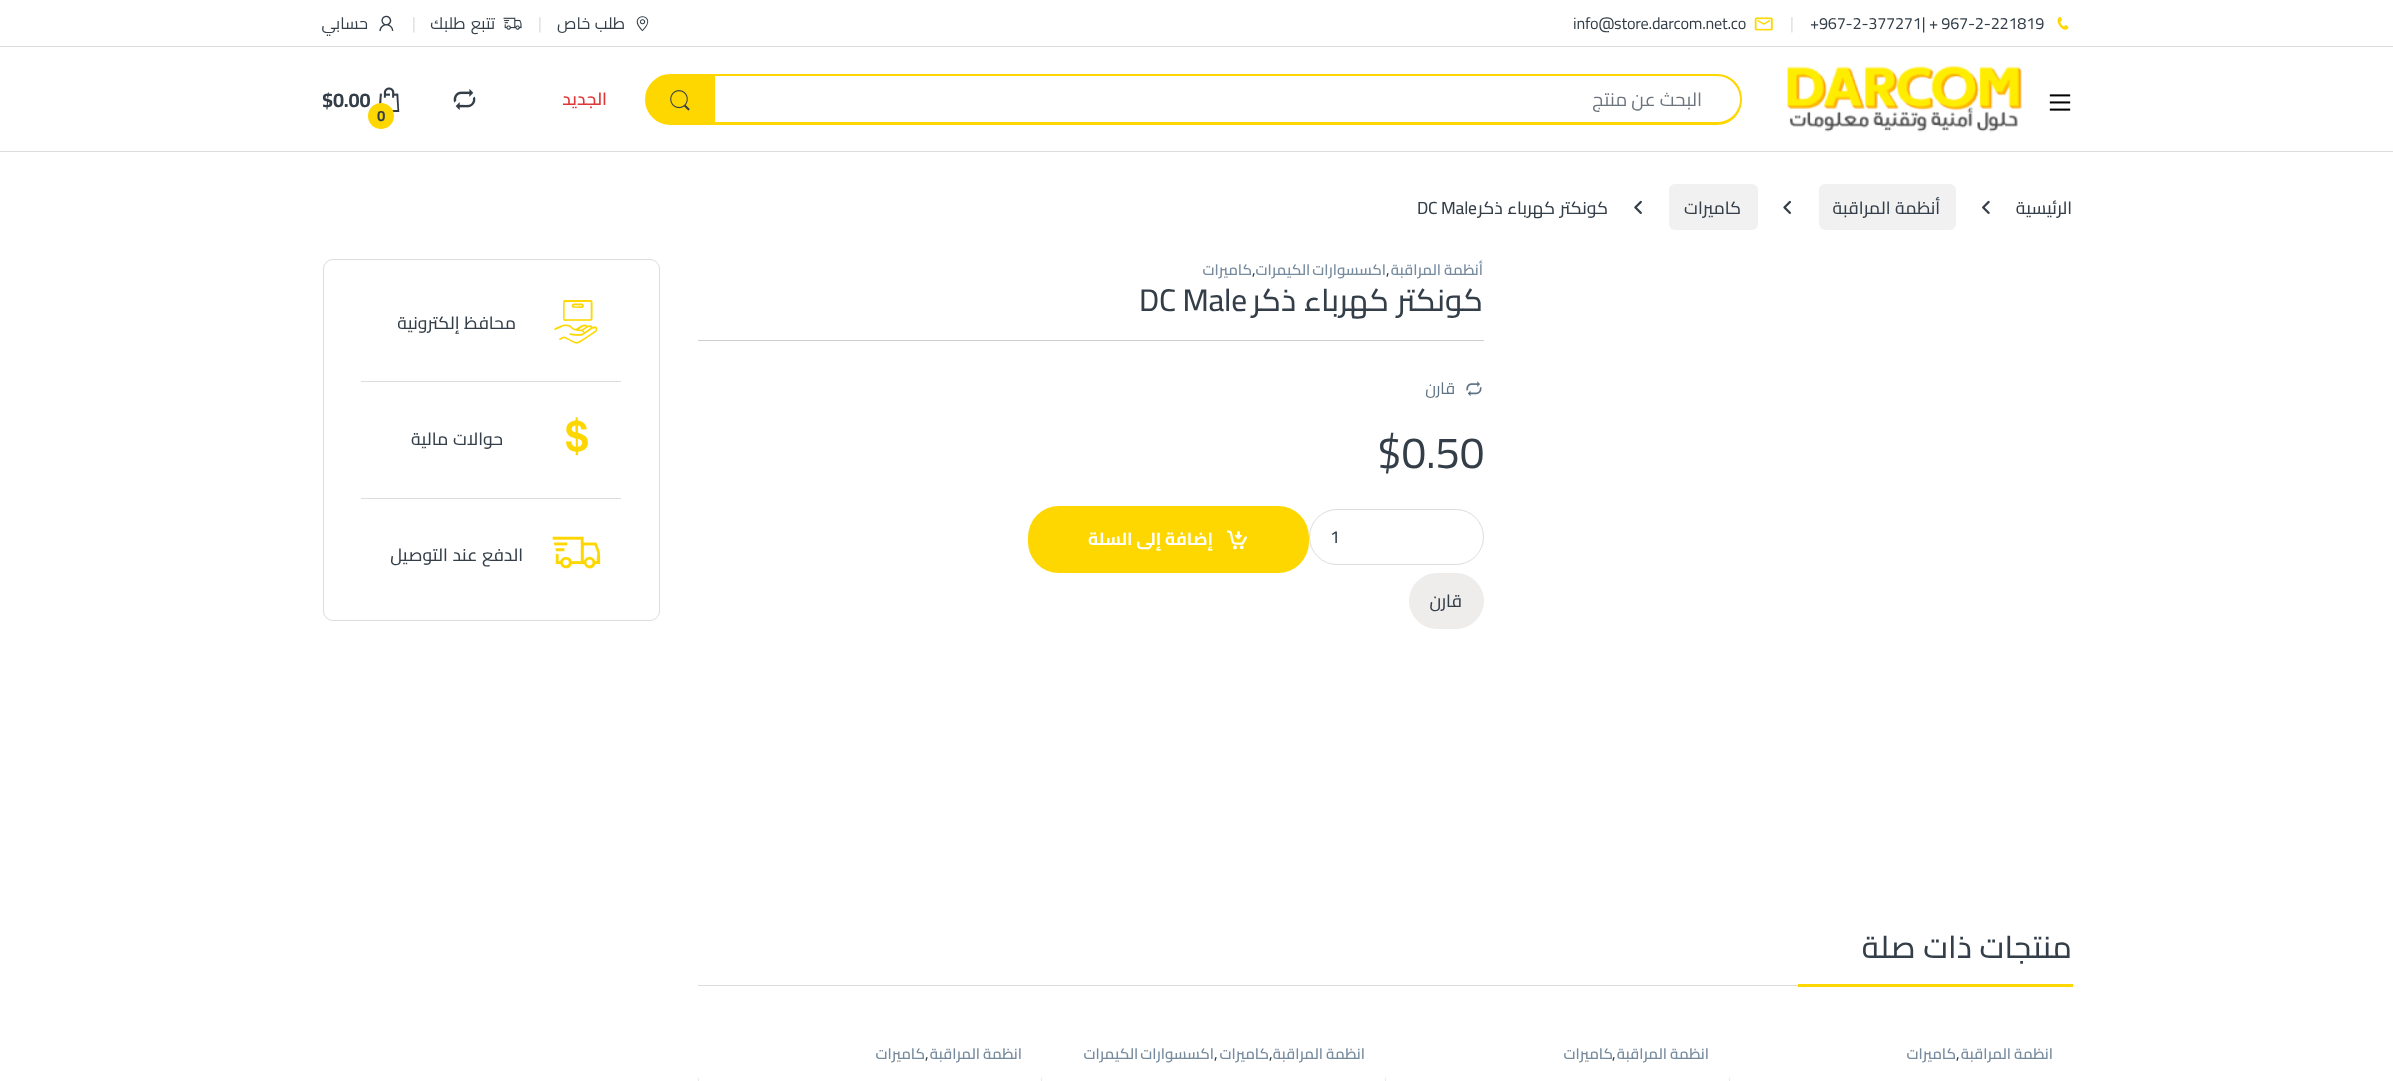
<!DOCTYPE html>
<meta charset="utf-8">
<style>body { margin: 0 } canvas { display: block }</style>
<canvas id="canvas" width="2393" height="1081"></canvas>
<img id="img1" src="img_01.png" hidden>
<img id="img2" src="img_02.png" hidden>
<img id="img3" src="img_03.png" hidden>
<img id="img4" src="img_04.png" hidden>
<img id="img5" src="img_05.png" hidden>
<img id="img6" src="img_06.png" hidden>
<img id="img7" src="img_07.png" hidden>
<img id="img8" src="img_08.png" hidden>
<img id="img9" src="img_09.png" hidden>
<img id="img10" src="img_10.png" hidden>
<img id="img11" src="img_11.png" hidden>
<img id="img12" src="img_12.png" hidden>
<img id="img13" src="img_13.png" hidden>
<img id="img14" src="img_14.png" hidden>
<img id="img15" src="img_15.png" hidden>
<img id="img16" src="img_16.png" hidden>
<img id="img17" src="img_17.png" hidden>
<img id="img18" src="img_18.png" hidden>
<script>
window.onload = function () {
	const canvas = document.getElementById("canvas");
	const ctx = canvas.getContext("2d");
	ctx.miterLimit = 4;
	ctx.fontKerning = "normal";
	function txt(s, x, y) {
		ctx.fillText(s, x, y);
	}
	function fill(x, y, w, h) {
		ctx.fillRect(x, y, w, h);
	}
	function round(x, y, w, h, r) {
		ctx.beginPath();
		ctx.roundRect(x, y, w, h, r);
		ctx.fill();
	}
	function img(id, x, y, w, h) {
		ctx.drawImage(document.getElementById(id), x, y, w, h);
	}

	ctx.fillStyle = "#FFFFFF";
	fill(0, 0, 2393, 1081);
	ctx.fillStyle = "#DDDDDD";
	fill(0, 46, 2393, 1);
	img("img1", 2057, 16, 12, 14);
	img("img2", 1754, 17, 19, 14);
	img("img3", 636, 16, 13, 16);
	img("img4", 503, 17, 19, 13);
	img("img5", 379, 15, 15, 17);
	fill(0, 151, 2393, 1);
	img("img6", 2049, 94, 22, 17);
	img("img7", 1787, 66, 235, 66);
	ctx.fillStyle = "#FED700";
	ctx.beginPath();
	ctx.moveTo(714, 74);
	ctx.lineTo(1717, 74);
	ctx.bezierCurveTo(1731, 74, 1742, 85, 1742, 99);
	ctx.bezierCurveTo(1742, 114, 1731, 125, 1717, 125);
	ctx.lineTo(714, 125);
	ctx.closePath();
	ctx.moveTo(714, 76);
	ctx.lineTo(1717, 76);
	ctx.bezierCurveTo(1730, 76, 1740, 87, 1740, 99);
	ctx.bezierCurveTo(1740, 112, 1730, 122, 1717, 122);
	ctx.lineTo(714, 122);
	ctx.closePath();
	ctx.fill("evenodd");
	ctx.beginPath();
	ctx.roundRect(646.5, 75.5, 67, 48, [24, 0, 0, 24]);
	ctx.fill();
	ctx.strokeStyle = "#FED700";
	ctx.lineWidth = 3;
	ctx.stroke();
	img("img8", 670, 90, 20, 21);
	img("img9", 453, 88, 23, 22);
	img("img10", 379, 87, 21, 25);
	img("img11", 1982, 200, 8, 14);
	ctx.fillStyle = "#F1F1F1";
	round(1819, 184, 137, 46, 6);
	img("img12", 1783, 200, 8, 14);
	round(1669, 184, 89, 46, 6);
	img("img13", 1634, 200, 8, 14);
	ctx.fillStyle = "#CCCFD1";
	fill(698, 340, 786, 1);
	img("img14", 1466, 381, 16, 16);
	ctx.beginPath();
	ctx.roundRect(1309.5, 509.5, 174, 55, 27.5);
	ctx.strokeStyle = "#DDDDDD";
	ctx.lineWidth = 1;
	ctx.stroke();
	ctx.fillStyle = "#FED700";
	round(1028, 506, 281, 67, 31);
	img("img15", 1226, 530, 21, 20);
	ctx.fillStyle = "#EFECEC";
	ctx.beginPath();
	ctx.roundRect(1409.5, 573.5, 74, 55, 27.5);
	ctx.fill();
	ctx.strokeStyle = "#EFECEC";
	ctx.stroke();
	ctx.fillStyle = "#DDDDDD";
	fill(698, 985, 1100, 1);
	ctx.fillStyle = "#FED700";
	fill(1798, 984, 275, 3);
	ctx.fillStyle = "#EAEAEA";
	fill(1729, 1078, 1, 3);
	fill(1385, 1078, 1, 3);
	fill(1041, 1078, 1, 3);
	fill(698, 1078, 1, 3);
	ctx.beginPath();
	ctx.roundRect(323.5, 259.5, 336, 361, 9.5);
	ctx.strokeStyle = "#DDDDDD";
	ctx.stroke();
	ctx.fillStyle = "#DDDDDD";
	fill(361, 381, 260, 1);
	img("img16", 554, 300, 44, 44);
	fill(361, 498, 260, 1);
	img("img17", 566, 417, 22, 39);
	img("img18", 552, 536, 49, 33);
	ctx.letterSpacing = "-0.2px";
	ctx.font = "16.25px Cairo";
	ctx.fillStyle = "#333E48";
	txt("+ 967-2-221819", 1929, 29);
	txt("+967-2-377271|", 1810, 29);
	ctx.fillStyle = "#DDDDDD";
	txt("|", 1790, 29);
	ctx.fillStyle = "#333E48";
	txt("info@store.darcom.net.co", 1573, 29);
	ctx.wordSpacing = "1px";
	ctx.direction = "rtl";
	txt("طلب خاص", 625, 29);
	ctx.wordSpacing = "0px";
	ctx.direction = "ltr";
	ctx.fillStyle = "#DDDDDD";
	txt("|", 538, 29);
	ctx.wordSpacing = "2px";
	ctx.direction = "rtl";
	ctx.fillStyle = "#333E48";
	txt("تتبع طلبك", 495, 29);
	ctx.wordSpacing = "0px";
	ctx.direction = "ltr";
	ctx.fillStyle = "#DDDDDD";
	txt("|", 412, 29);
	ctx.direction = "rtl";
	ctx.fillStyle = "#333E48";
	txt("حسابي", 368, 29);
	ctx.letterSpacing = "0px";
	ctx.font = "18.75px Cairo";
	ctx.fillStyle = "#6C757D";
	txt("البحث عن منتج", 1702, 106);
	ctx.letterSpacing = "-0.2px";
	ctx.font = "600 17.5px Cairo";
	ctx.fillStyle = "#DF3737";
	txt("الجديد", 607, 105);
	ctx.direction = "ltr";
	ctx.font = "bold 20px Cairo";
	ctx.fillStyle = "#333E48";
	txt("$0.00", 322, 107);
	ctx.fillStyle = "#FED700";
	ctx.beginPath();
	ctx.arc(381, 116, 13, 0, Math.PI * 2);
	ctx.fill();
	ctx.font = "bold 15px Cairo";
	ctx.fillStyle = "#333E48";
	txt("0", 377, 121);
	ctx.direction = "rtl";
	ctx.font = "500 17.5px Cairo";
	txt("الرئيسية", 2072, 214);
	ctx.wordSpacing = "1px";
	txt("أنظمة المراقبة", 1940, 214);
	ctx.wordSpacing = "0px";
	txt("كاميرات", 1741, 214);
	ctx.wordSpacing = "1px";
	txt("كونكتر كهرباء ذكر", 1608, 214);
	ctx.wordSpacing = "0px";
	ctx.direction = "ltr";
	txt("DC Male", 1417, 214);
	ctx.direction = "rtl";
	ctx.font = "600 15px Cairo";
	ctx.fillStyle = "#768B9E";
	txt("أنظمة المراقبة", 1483, 275);
	ctx.direction = "ltr";
	ctx.fillStyle = "#333E48";
	txt(",", 1386, 275);
	ctx.wordSpacing = "-1px";
	ctx.direction = "rtl";
	ctx.fillStyle = "#768B9E";
	txt("اكسسوارات الكيمرات", 1386, 275);
	ctx.wordSpacing = "0px";
	ctx.direction = "ltr";
	ctx.fillStyle = "#333E48";
	txt(",", 1252, 275);
	ctx.direction = "rtl";
	ctx.fillStyle = "#768B9E";
	txt("كاميرات", 1252, 275);
	ctx.wordSpacing = "1px";
	ctx.font = "500 31.25px Cairo";
	ctx.fillStyle = "#333E48";
	txt("كونكتر كهرباء ذكر", 1483, 311);
	ctx.wordSpacing = "0px";
	ctx.direction = "ltr";
	txt("DC Male", 1139, 311);
	ctx.direction = "rtl";
	ctx.font = "16.25px Cairo";
	ctx.fillStyle = "#5D7184";
	txt("قارن", 1455, 394);
	ctx.direction = "ltr";
	ctx.font = "44px Cairo";
	ctx.fillStyle = "#333E48";
	txt("$0.50", 1377, 468);
	ctx.letterSpacing = "0px";
	ctx.font = "500 17.5px Cairo";
	txt("1", 1330, 543);
	ctx.direction = "rtl";
	ctx.font = "bold 17.5px Cairo";
	ctx.fillStyle = "#FFFFFF";
	txt("إضافة إلى السلة", 1213, 545);
	ctx.letterSpacing = "-0.2px";
	ctx.font = "500 17.5px Cairo";
	ctx.fillStyle = "#333E48";
	txt("قارن", 1462, 607);
	ctx.wordSpacing = "1px";
	ctx.font = "500 31.25px Cairo";
	txt("منتجات ذات صلة", 2072, 958);
	ctx.save();
	ctx.beginPath();
	ctx.rect(1746, 1048, 308, 15);
	ctx.clip();
	ctx.wordSpacing = "0px";
	ctx.font = "600 15px Cairo";
	ctx.fillStyle = "#768B9E";
	txt("أنظمة المراقبة", 2053, 1059);
	ctx.restore();
	ctx.wordSpacing = "0px";
	ctx.direction = "ltr";
	ctx.font = "600 15px Cairo";
	txt(",", 1956, 1059);
	ctx.direction = "rtl";
	ctx.fillStyle = "#768B9E";
	txt("كاميرات", 1956, 1059);
	ctx.save();
	ctx.beginPath();
	ctx.rect(1403, 1048, 307, 15);
	ctx.clip();
	txt("أنظمة المراقبة", 1709, 1059);
	ctx.restore();
	ctx.direction = "ltr";
	ctx.fillStyle = "#333E48";
	txt(",", 1612, 1059);
	ctx.direction = "rtl";
	ctx.fillStyle = "#768B9E";
	txt("كاميرات", 1613, 1059);
	ctx.save();
	ctx.beginPath();
	ctx.rect(1059, 1048, 307, 15);
	ctx.clip();
	txt("أنظمة المراقبة", 1365, 1059);
	ctx.restore();
	ctx.direction = "ltr";
	ctx.fillStyle = "#333E48";
	txt(",", 1269, 1059);
	ctx.direction = "rtl";
	ctx.fillStyle = "#768B9E";
	txt("كاميرات", 1269, 1059);
	ctx.direction = "ltr";
	ctx.fillStyle = "#333E48";
	txt(",", 1214, 1059);
	ctx.wordSpacing = "-1px";
	ctx.direction = "rtl";
	ctx.fillStyle = "#768B9E";
	txt("اكسسوارات الكيمرات", 1214, 1059);
	ctx.save();
	ctx.beginPath();
	ctx.rect(715, 1048, 308, 15);
	ctx.clip();
	ctx.wordSpacing = "0px";
	txt("أنظمة المراقبة", 1022, 1059);
	ctx.restore();
	ctx.wordSpacing = "0px";
	ctx.direction = "ltr";
	ctx.fillStyle = "#333E48";
	txt(",", 925, 1059);
	ctx.direction = "rtl";
	ctx.fillStyle = "#768B9E";
	txt("كاميرات", 925, 1059);
	ctx.wordSpacing = "1px";
	ctx.font = "500 17.5px Cairo";
	ctx.fillStyle = "#333E48";
	txt("محافظ إلكترونية", 516, 329);
	txt("حوالات مالية", 503, 445);
	txt("الدفع عند التوصيل", 523, 561);
};
</script>
